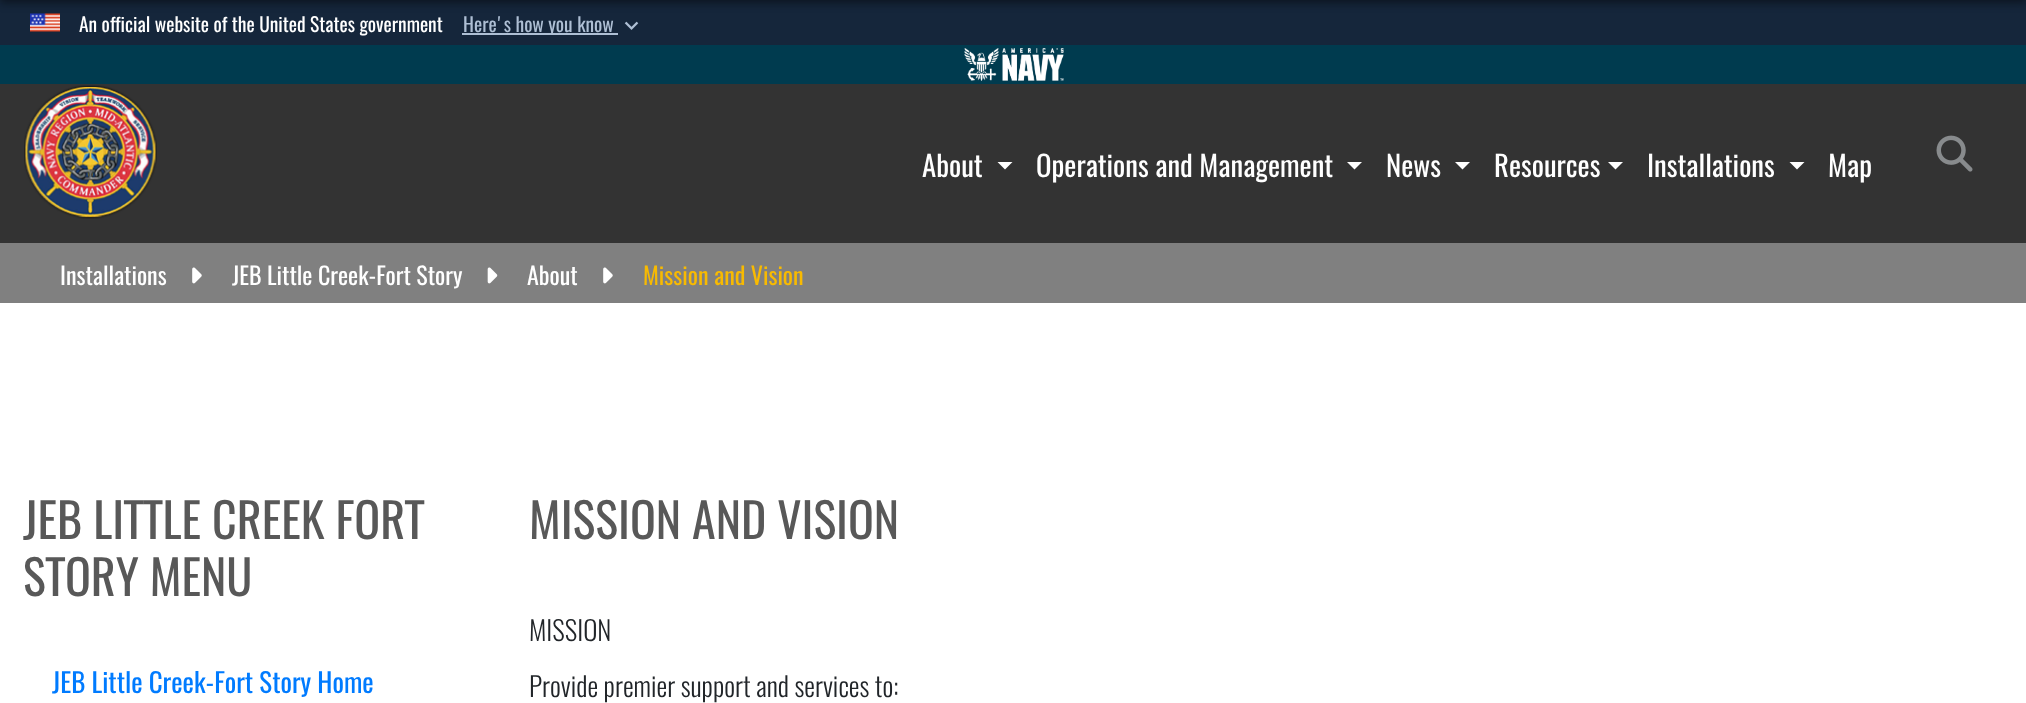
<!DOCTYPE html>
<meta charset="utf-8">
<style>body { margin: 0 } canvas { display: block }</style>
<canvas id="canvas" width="2026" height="703"></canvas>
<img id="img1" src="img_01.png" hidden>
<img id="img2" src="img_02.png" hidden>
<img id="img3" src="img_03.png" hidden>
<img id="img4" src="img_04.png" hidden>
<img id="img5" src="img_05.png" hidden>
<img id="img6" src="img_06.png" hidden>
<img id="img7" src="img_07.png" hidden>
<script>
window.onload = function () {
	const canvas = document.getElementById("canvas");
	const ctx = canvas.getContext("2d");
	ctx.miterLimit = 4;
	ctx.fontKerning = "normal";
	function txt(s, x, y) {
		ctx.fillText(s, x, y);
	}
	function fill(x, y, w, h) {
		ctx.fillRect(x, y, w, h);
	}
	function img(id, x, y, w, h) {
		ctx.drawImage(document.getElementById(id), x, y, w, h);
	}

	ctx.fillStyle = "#FFFFFF";
	fill(0, 0, 2026, 703);
	ctx.fillStyle = "#15263B";
	fill(0, 0, 2026, 45);
	img("img1", 30, 13, 30, 19);
	ctx.fillStyle = "#AEBFD4";
	fill(462, 33, 156, 2);
	img("img2", 624, 21, 15, 9);
	ctx.fillStyle = "rgba(2, 4, 6, 0.5)";
	ctx.filter = "blur(4px)";
	ctx.beginPath();
	ctx.rect(0, -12, 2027, 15);
	ctx.fill();
	ctx.filter = "none";
	ctx.fillStyle = "#003B4F";
	fill(0, 45, 2026, 39);
	img("img3", 964, 48, 100, 33);
	ctx.fillStyle = "#333333";
	fill(0, 84, 2026, 159);
	img("img4", 24, 85, 133, 134);
	ctx.fillStyle = "#FFFFFF";
	ctx.beginPath();
	ctx.moveTo(997.5, 162);
	ctx.lineTo(1012.5, 162);
	ctx.lineTo(1005, 169.5);
	ctx.closePath();
	ctx.fill();
	ctx.beginPath();
	ctx.moveTo(1347, 162);
	ctx.lineTo(1362, 162);
	ctx.lineTo(1354.5, 169.5);
	ctx.closePath();
	ctx.fill();
	ctx.beginPath();
	ctx.moveTo(1455, 162);
	ctx.lineTo(1470, 162);
	ctx.lineTo(1462.5, 169.5);
	ctx.closePath();
	ctx.fill();
	ctx.beginPath();
	ctx.moveTo(1608, 162);
	ctx.lineTo(1623, 162);
	ctx.lineTo(1615.5, 169.5);
	ctx.closePath();
	ctx.fill();
	ctx.beginPath();
	ctx.moveTo(1789.5, 162);
	ctx.lineTo(1804.5, 162);
	ctx.lineTo(1797, 169.5);
	ctx.closePath();
	ctx.fill();
	img("img5", 1936, 135, 37, 37);
	ctx.fillStyle = "#808080";
	fill(0, 243, 2026, 60);
	img("img6", 192, 267, 10, 17);
	img("img7", 487, 267, 11, 17);
	img("img6", 603, 267, 10, 17);
	ctx.font = "19.5px Oswald";
	ctx.fillStyle = "#FFFFFF";
	txt("An official website of the United States government", 79, 32);
	ctx.fillStyle = "#AEBFD4";
	txt("Here's how you know", 463, 32);
	ctx.font = "28.75px Oswald";
	ctx.fillStyle = "#FFFFFF";
	txt("About", 922, 177);
	txt("Operations and Management", 1036, 177);
	txt("News", 1386, 177);
	txt("Resources", 1494, 177);
	txt("Installations", 1647, 177);
	txt("Map", 1828, 177);
	ctx.font = "24px Oswald";
	txt("Installations", 60, 285);
	txt("JEB Little Creek-Fort Story", 232, 285);
	txt("About", 527, 285);
	ctx.fillStyle = "#F8BA01";
	txt("Mission and Vision", 643, 285);
	ctx.font = "48px Oswald";
	ctx.fillStyle = "#585858";
	txt("JEB LITTLE CREEK FORT", 23, 539);
	txt("STORY MENU", 23, 596);
	ctx.font = "27px Oswald";
	ctx.fillStyle = "#007BFF";
	txt("JEB Little Creek-Fort Story Home", 52, 693);
	ctx.font = "48px Oswald";
	ctx.fillStyle = "#585858";
	txt("MISSION AND VISION", 529, 539);
	ctx.font = "300 27px Oswald";
	ctx.fillStyle = "#212529";
	txt("MISSION", 529, 641);
	txt("Provide premier support and services to:", 529, 697);
};
</script>
